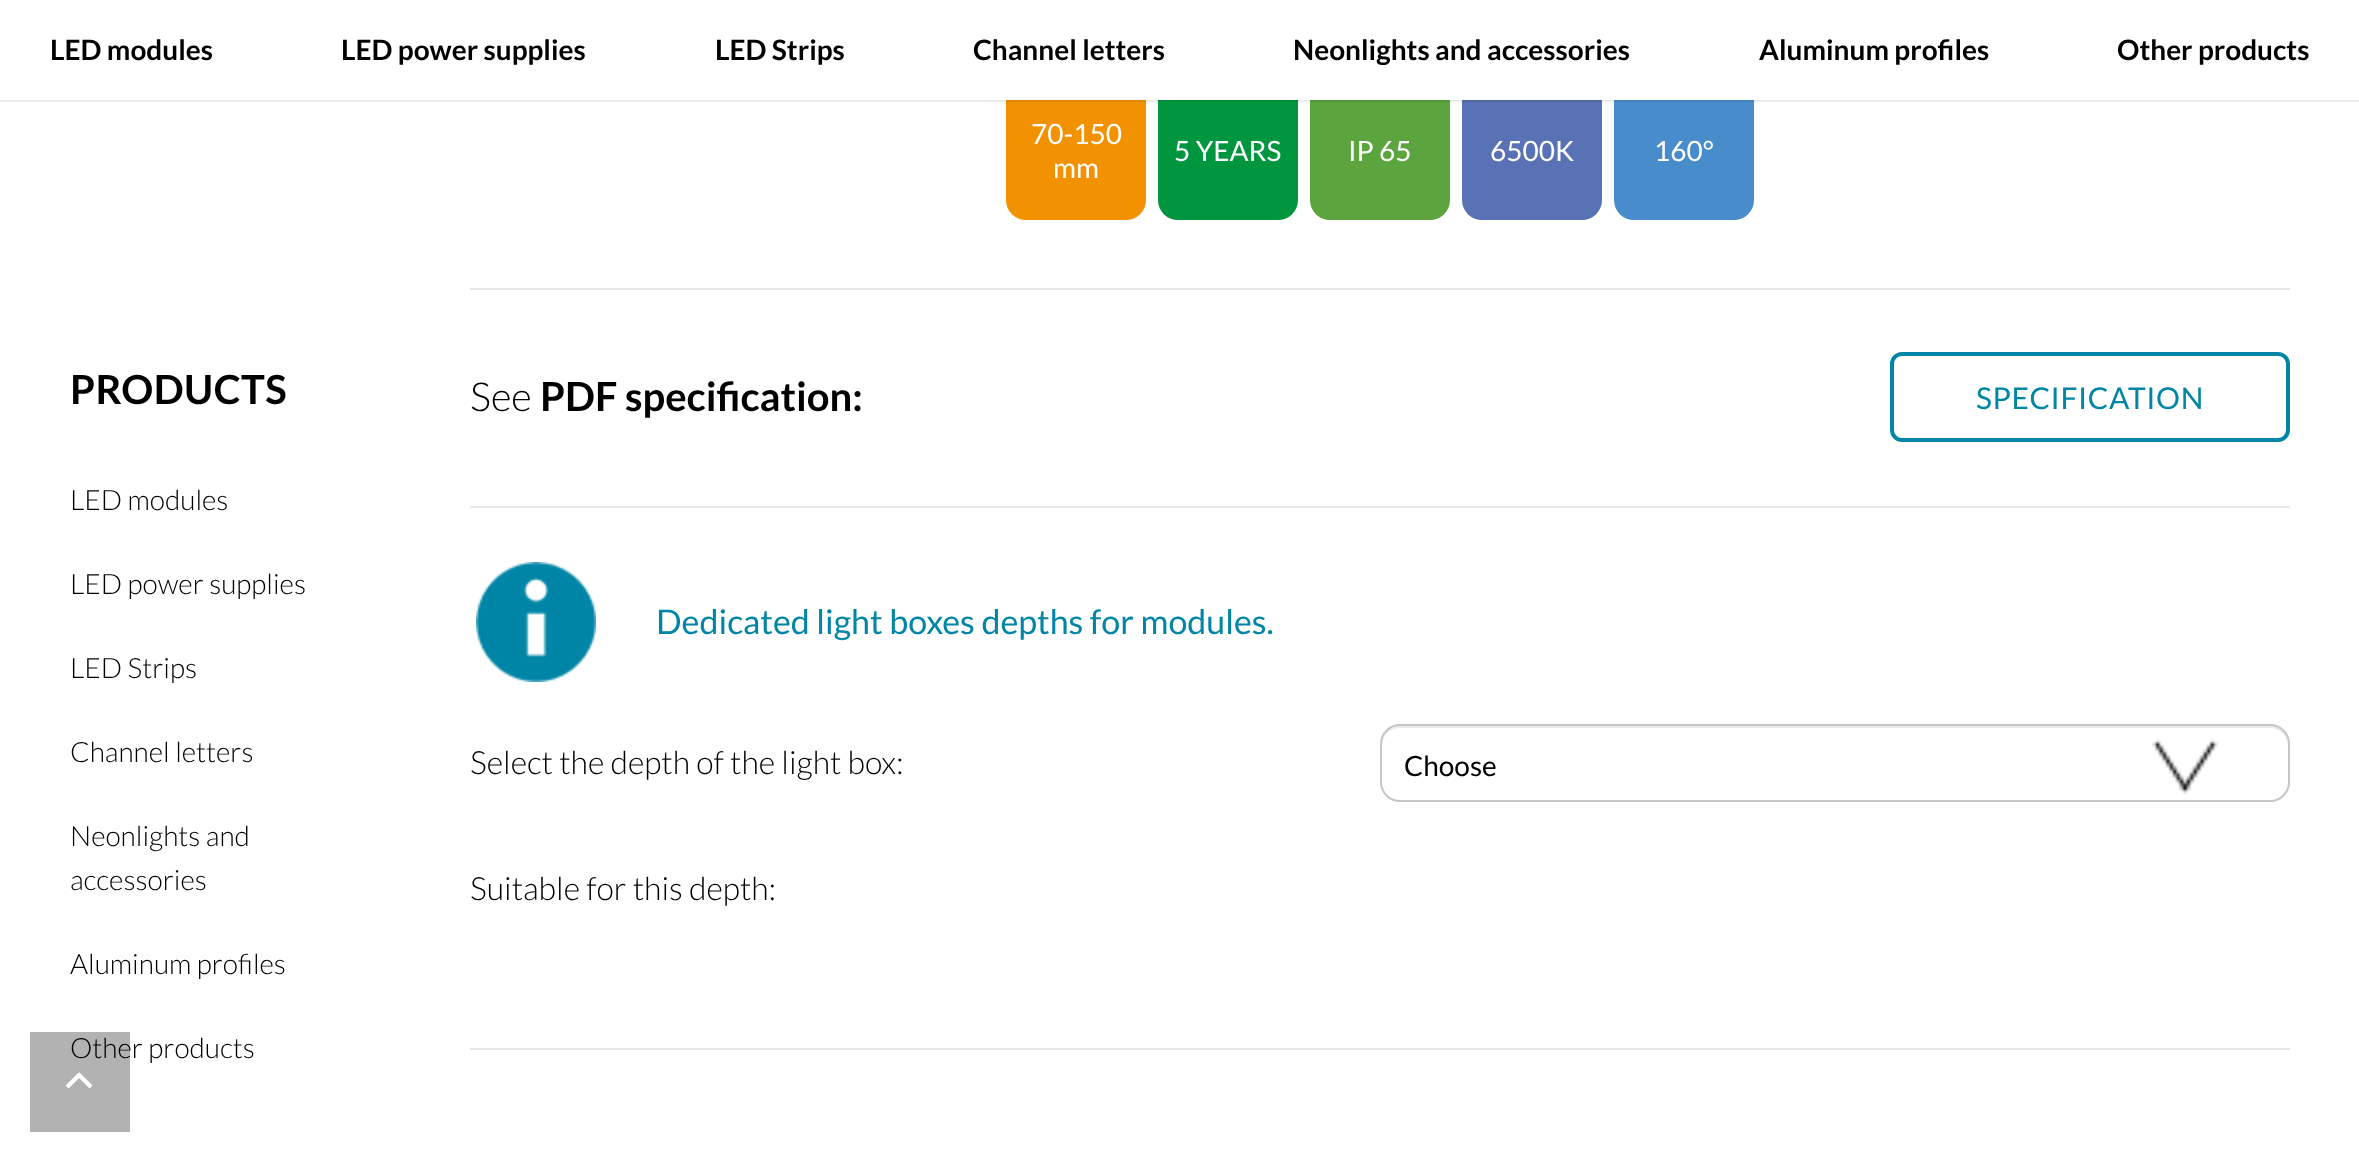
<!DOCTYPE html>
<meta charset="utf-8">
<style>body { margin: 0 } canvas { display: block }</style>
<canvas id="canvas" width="2359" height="1162"></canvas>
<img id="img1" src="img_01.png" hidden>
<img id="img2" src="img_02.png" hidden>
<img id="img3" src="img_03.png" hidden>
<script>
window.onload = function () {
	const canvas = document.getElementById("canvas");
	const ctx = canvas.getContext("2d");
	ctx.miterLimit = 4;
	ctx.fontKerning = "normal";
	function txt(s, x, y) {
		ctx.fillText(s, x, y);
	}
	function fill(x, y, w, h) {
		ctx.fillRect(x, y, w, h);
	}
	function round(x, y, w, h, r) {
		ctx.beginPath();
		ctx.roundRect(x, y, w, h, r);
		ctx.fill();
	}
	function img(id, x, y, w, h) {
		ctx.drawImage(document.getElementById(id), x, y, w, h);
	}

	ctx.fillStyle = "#FFFFFF";
	fill(0, 0, 2359, 1162);
	ctx.fillStyle = "#EBEBEB";
	fill(0, 100, 2359, 2);
	ctx.fillStyle = "#F39200";
	round(1006, 80, 140, 140, 20);
	ctx.fillStyle = "#009640";
	round(1158, 80, 140, 140, 20);
	ctx.fillStyle = "#5CA43E";
	round(1310, 80, 140, 140, 20);
	ctx.fillStyle = "#5972B6";
	round(1462, 80, 140, 140, 20);
	ctx.fillStyle = "#488CCB";
	round(1614, 80, 140, 140, 20);
	ctx.fillStyle = "#FFFFFF";
	fill(1006, 80, 748, 20);
	ctx.fillStyle = "#E08600";
	fill(1006, 100, 140, 2);
	ctx.fillStyle = "#008A3B";
	fill(1158, 100, 140, 2);
	ctx.fillStyle = "#559739";
	fill(1310, 100, 140, 2);
	ctx.fillStyle = "#5269A7";
	fill(1462, 100, 140, 2);
	ctx.fillStyle = "#4281BB";
	fill(1614, 100, 140, 2);
	ctx.fillStyle = "#E8E8E8";
	fill(470, 288, 1820, 2);
	ctx.beginPath();
	ctx.roundRect(1892, 354, 396, 86, 10);
	ctx.strokeStyle = "#0085A6";
	ctx.lineWidth = 4;
	ctx.stroke();
	fill(470, 506, 1820, 2);
	img("img1", 476, 562, 120, 120);
	img("img2", 2151, 738, 68, 57);
	ctx.fillStyle = "#EBEBEB";
	ctx.beginPath();
	ctx.moveTo(1400, 728);
	ctx.lineTo(2270, 728);
	ctx.bezierCurveTo(2280, 728, 2288, 736, 2288, 746);
	ctx.lineTo(2288, 744);
	ctx.bezierCurveTo(2288, 734, 2280, 726, 2270, 726);
	ctx.lineTo(1400, 726);
	ctx.bezierCurveTo(1390, 726, 1382, 734, 1382, 744);
	ctx.lineTo(1382, 746);
	ctx.bezierCurveTo(1382, 736, 1390, 728, 1400, 728);
	ctx.closePath();
	ctx.fill();
	ctx.beginPath();
	ctx.roundRect(1381, 725, 908, 76, 19);
	ctx.strokeStyle = "#C6C6C6";
	ctx.lineWidth = 2;
	ctx.stroke();
	ctx.fillStyle = "#E8E8E8";
	fill(470, 1048, 1820, 2);
	ctx.font = "bold 28px Lato";
	ctx.fillStyle = "#000000";
	txt("LED modules", 50, 60);
	txt("LED power supplies", 341, 60);
	txt("LED Strips", 715, 60);
	txt("Channel letters", 973, 60);
	txt("Neonlights and accessories", 1293, 60);
	txt("Aluminum profiles", 1759, 60);
	txt("Other products", 2117, 60);
	ctx.letterSpacing = "0.5px";
	ctx.font = "bold 40px Lato";
	txt("PRODUCTS", 70, 404);
	ctx.letterSpacing = "0px";
	ctx.font = "300 28px Lato";
	txt("LED modules", 70, 510);
	txt("LED power supplies", 70, 594);
	txt("LED Strips", 70, 678);
	txt("Channel letters", 70, 762);
	txt("Neonlights and", 70, 846);
	txt("accessories", 70, 890);
	txt("Aluminum profiles", 70, 974);
	txt("Other products", 70, 1058);
	ctx.font = "28px Lato";
	ctx.fillStyle = "#FFFFFF";
	txt("70-150", 1031, 144);
	txt("mm", 1053, 178);
	txt("5 YEARS", 1174, 161);
	txt("IP 65", 1348, 161);
	txt("6500K", 1490, 161);
	txt("160°", 1654, 161);
	ctx.font = "300 40px Lato";
	ctx.fillStyle = "#000000";
	txt("See", 470, 411);
	ctx.font = "bold 40px Lato";
	txt("PDF specification:", 540, 411);
	ctx.letterSpacing = "0.6px";
	ctx.font = "30px Lato";
	ctx.fillStyle = "#0085A6";
	txt("SPECIFICATION", 1976, 409);
	ctx.letterSpacing = "0px";
	ctx.font = "34px Lato";
	txt("Dedicated light boxes depths for modules.", 656, 634);
	ctx.font = "300 32px Lato";
	ctx.fillStyle = "#000000";
	txt("Select the depth of the light box:", 470, 774);
	ctx.font = "28px Lato";
	txt("Choose", 1404, 776);
	ctx.font = "300 32px Lato";
	txt("Suitable for this depth:", 470, 900);
	ctx.fillStyle = "rgba(0, 0, 0, 0.3)";
	fill(30, 1032, 100, 100);
	img("img3", 66, 1072, 27, 16);
};
</script>
